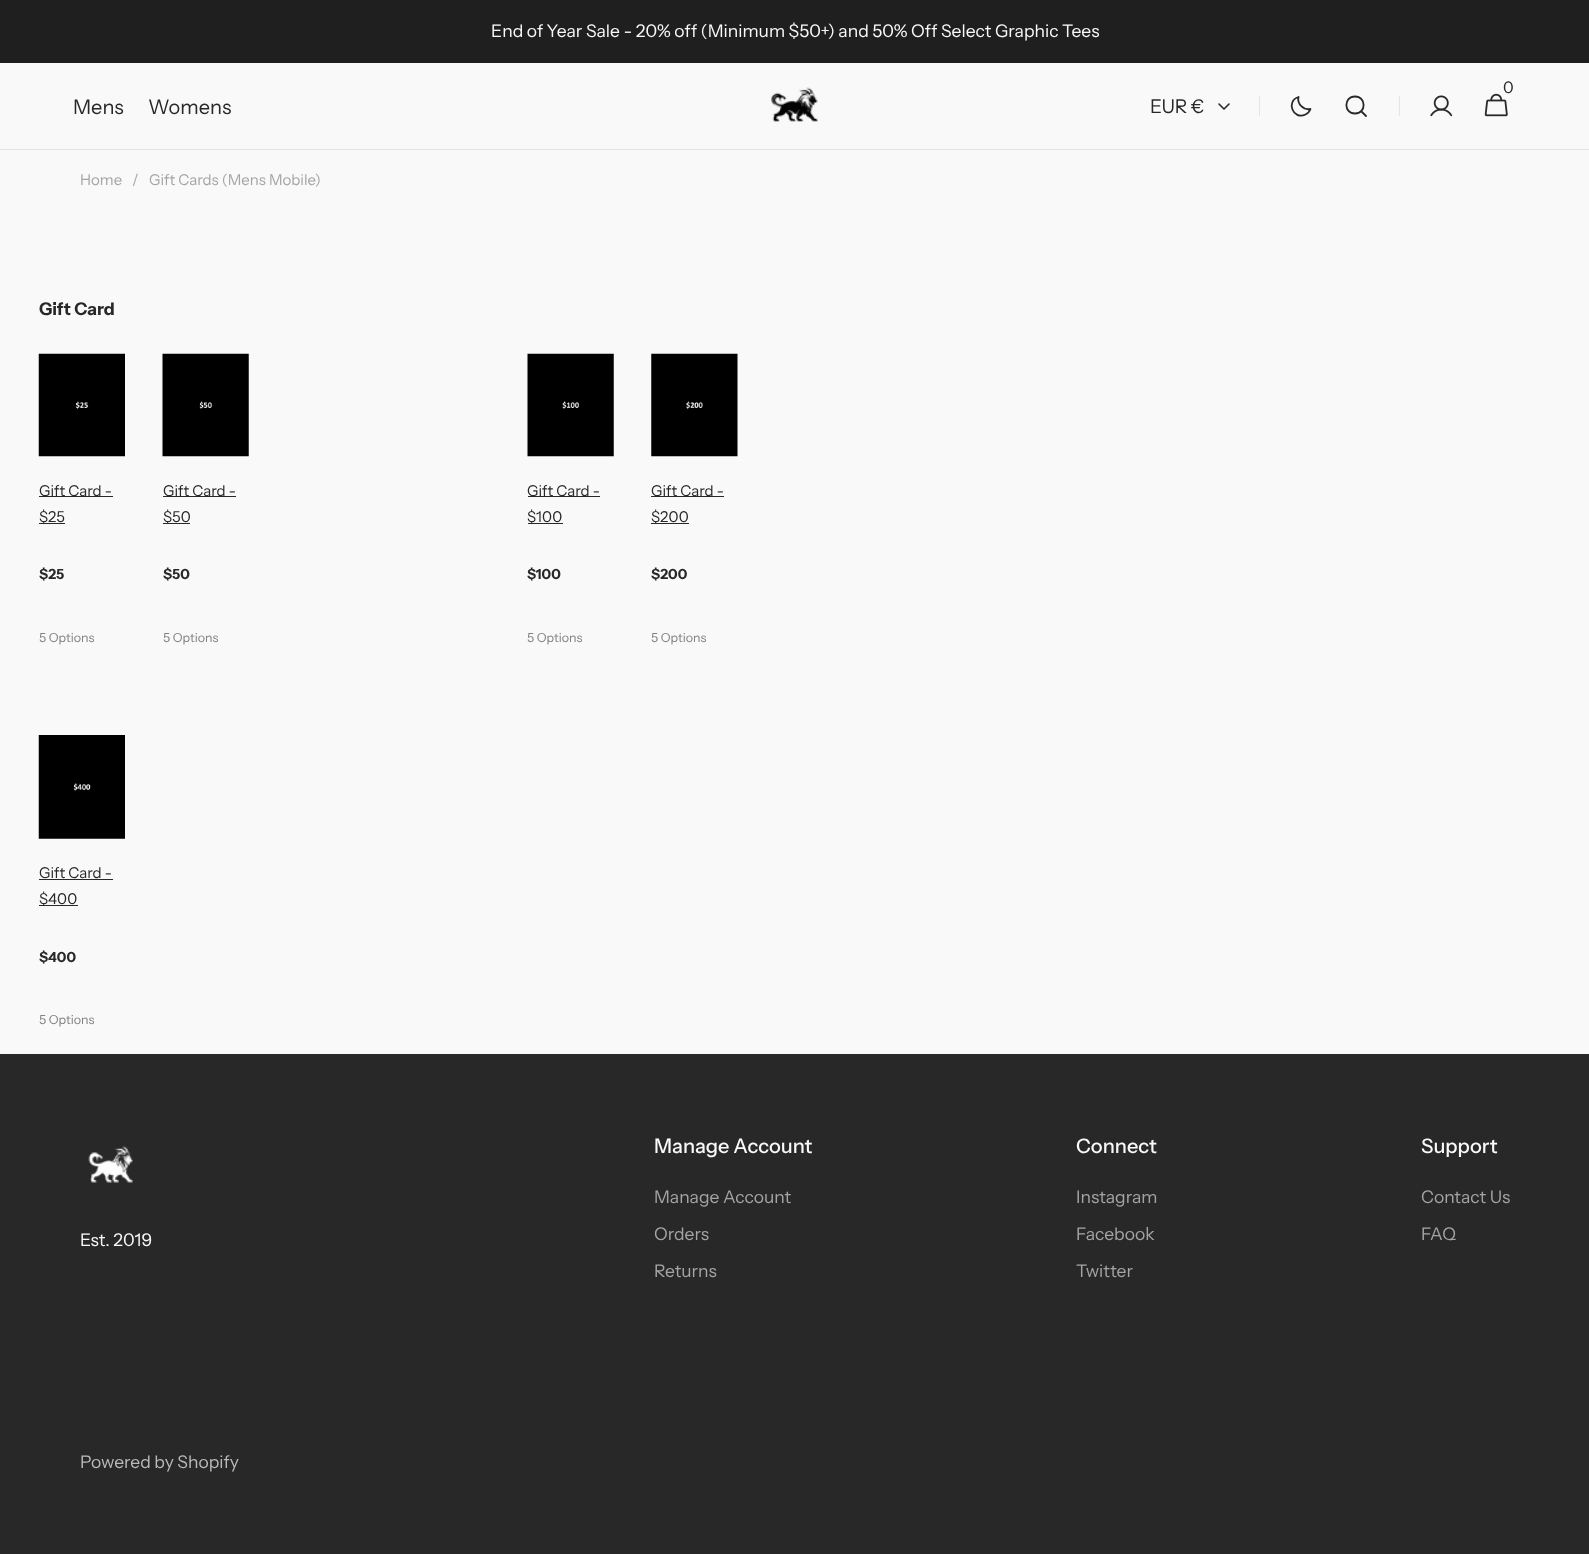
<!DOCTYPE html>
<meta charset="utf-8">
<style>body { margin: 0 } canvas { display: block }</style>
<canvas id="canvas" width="1589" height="1554"></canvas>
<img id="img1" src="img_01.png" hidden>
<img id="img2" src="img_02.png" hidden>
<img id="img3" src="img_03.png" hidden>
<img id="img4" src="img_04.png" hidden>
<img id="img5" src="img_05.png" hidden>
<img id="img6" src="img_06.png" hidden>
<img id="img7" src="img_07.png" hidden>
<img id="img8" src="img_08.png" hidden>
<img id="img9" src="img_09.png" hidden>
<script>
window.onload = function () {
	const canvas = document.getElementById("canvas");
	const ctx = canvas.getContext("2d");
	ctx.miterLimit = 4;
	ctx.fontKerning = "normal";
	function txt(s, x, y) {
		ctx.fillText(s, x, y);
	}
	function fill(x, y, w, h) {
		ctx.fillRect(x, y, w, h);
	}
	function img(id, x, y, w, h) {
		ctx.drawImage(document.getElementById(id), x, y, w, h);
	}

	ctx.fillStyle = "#F9F9F9";
	fill(0, 0, 1589, 1554);
	ctx.fillStyle = "#1F1F1F";
	fill(0, 0, 1589, 63);
	img("img1", 771, 87, 47, 35);
	img("img2", 1484, 93, 24, 24);
	ctx.beginPath();
	ctx.moveTo(1229, 104);
	ctx.lineTo(1224, 109);
	ctx.lineTo(1219, 104);
	ctx.strokeStyle = "#282828";
	ctx.lineWidth = 1.6;
	ctx.lineCap = "round";
	ctx.lineJoin = "round";
	ctx.stroke();
	ctx.fillStyle = "#E5E5E5";
	fill(1259, 96, 1, 20);
	ctx.beginPath();
	ctx.moveTo(1310.5, 109);
	ctx.bezierCurveTo(1303.5, 110.5, 1297, 104, 1298.5, 97);
	ctx.bezierCurveTo(1285.5, 101, 1293, 120.5, 1305.5, 114.5);
	ctx.bezierCurveTo(1308, 113.5, 1309.5, 111.5, 1310.5, 109);
	ctx.closePath();
	ctx.lineWidth = 1.8;
	ctx.stroke();
	ctx.beginPath();
	ctx.moveTo(1355, 113.5);
	ctx.bezierCurveTo(1366.5, 113.5, 1366.5, 96.5, 1355, 96.5);
	ctx.bezierCurveTo(1343.5, 96.5, 1343.5, 113.5, 1355, 113.5);
	ctx.closePath();
	ctx.moveTo(1361, 111);
	ctx.lineTo(1366, 116);
	ctx.stroke();
	fill(1399, 96, 1, 20);
	img("img3", 1430, 95, 23, 22);
	fill(0, 149, 1589, 1);
	img("img4", 38, 353, 87, 104);
	ctx.fillStyle = "#282828";
	fill(39, 496, 74, 1);
	fill(39, 523, 26, 1);
	img("img5", 162, 353, 87, 104);
	fill(163, 496, 73, 1);
	fill(163, 523, 27, 1);
	img("img6", 527, 353, 87, 104);
	fill(528, 496, 72, 1);
	fill(528, 523, 35, 1);
	img("img7", 651, 353, 87, 104);
	fill(651, 496, 73, 1);
	fill(651, 523, 38, 1);
	img("img8", 38, 735, 87, 104);
	fill(39, 879, 74, 1);
	fill(39, 905, 39, 1);
	fill(0, 1054, 1589, 500);
	img("img9", 88, 1146, 45, 37);
	ctx.font = "17.5px Instrument Sans";
	ctx.fillStyle = "#F9F9F9";
	txt("End of Year Sale - 20% off (Minimum $50+) and 50% Off Select Graphic Tees", 491, 37);
	ctx.font = "20px Instrument Sans";
	ctx.fillStyle = "#282828";
	txt("Mens", 73, 114);
	txt("Womens", 148, 114);
	ctx.font = "16px Instrument Sans";
	txt("0", 1503, 93);
	ctx.font = "19px Instrument Sans";
	txt("EUR €", 1150, 113);
	ctx.font = "15px Instrument Sans";
	ctx.fillStyle = "#A5A5A5";
	txt("Home", 80, 185);
	txt("/", 132, 185);
	txt("Gift Cards (Mens Mobile)", 149, 185);
	ctx.font = "bold 17.5px Instrument Sans";
	ctx.fillStyle = "#282828";
	txt("Gift Card", 39, 315);
	ctx.font = "15px Instrument Sans";
	txt("Gift Card -", 39, 496);
	txt("$25", 39, 522);
	ctx.font = "bold 14px Instrument Sans";
	txt("$25", 39, 579);
	ctx.font = "12.5px Instrument Sans";
	ctx.fillStyle = "#808080";
	txt("5 Options", 39, 642);
	ctx.font = "15px Instrument Sans";
	ctx.fillStyle = "#282828";
	txt("Gift Card -", 163, 496);
	txt("$50", 163, 522);
	ctx.font = "bold 14px Instrument Sans";
	txt("$50", 163, 579);
	ctx.font = "12.5px Instrument Sans";
	ctx.fillStyle = "#808080";
	txt("5 Options", 163, 642);
	ctx.font = "15px Instrument Sans";
	ctx.fillStyle = "#282828";
	txt("Gift Card -", 527, 496);
	txt("$100", 527, 522);
	ctx.font = "bold 14px Instrument Sans";
	txt("$100", 527, 579);
	ctx.font = "12.5px Instrument Sans";
	ctx.fillStyle = "#808080";
	txt("5 Options", 527, 642);
	ctx.font = "15px Instrument Sans";
	ctx.fillStyle = "#282828";
	txt("Gift Card -", 651, 496);
	txt("$200", 651, 522);
	ctx.font = "bold 14px Instrument Sans";
	txt("$200", 651, 579);
	ctx.font = "12.5px Instrument Sans";
	ctx.fillStyle = "#808080";
	txt("5 Options", 651, 642);
	ctx.font = "15px Instrument Sans";
	ctx.fillStyle = "#282828";
	txt("Gift Card -", 39, 878);
	txt("$400", 39, 904);
	ctx.font = "bold 14px Instrument Sans";
	txt("$400", 39, 962);
	ctx.font = "12.5px Instrument Sans";
	ctx.fillStyle = "#808080";
	txt("5 Options", 39, 1024);
	ctx.font = "17.5px Instrument Sans";
	ctx.fillStyle = "#F9F9F9";
	txt("Est. 2019", 80, 1246);
	ctx.font = "500 20px Instrument Sans";
	txt("Manage Account", 654, 1153);
	ctx.font = "17.5px Instrument Sans";
	ctx.fillStyle = "#A5A5A5";
	txt("Manage Account", 654, 1203);
	txt("Orders", 654, 1240);
	txt("Returns", 654, 1277);
	ctx.font = "500 20px Instrument Sans";
	ctx.fillStyle = "#F9F9F9";
	txt("Connect", 1076, 1153);
	ctx.font = "17.5px Instrument Sans";
	ctx.fillStyle = "#A5A5A5";
	txt("Instagram", 1076, 1203);
	txt("Facebook", 1076, 1240);
	txt("Twitter", 1076, 1277);
	ctx.font = "500 20px Instrument Sans";
	ctx.fillStyle = "#F9F9F9";
	txt("Support", 1421, 1153);
	ctx.font = "17.5px Instrument Sans";
	ctx.fillStyle = "#A5A5A5";
	txt("Contact Us", 1421, 1203);
	txt("FAQ", 1421, 1240);
	ctx.fillStyle = "#BABABA";
	txt("Powered by Shopify", 80, 1468);
};
</script>
